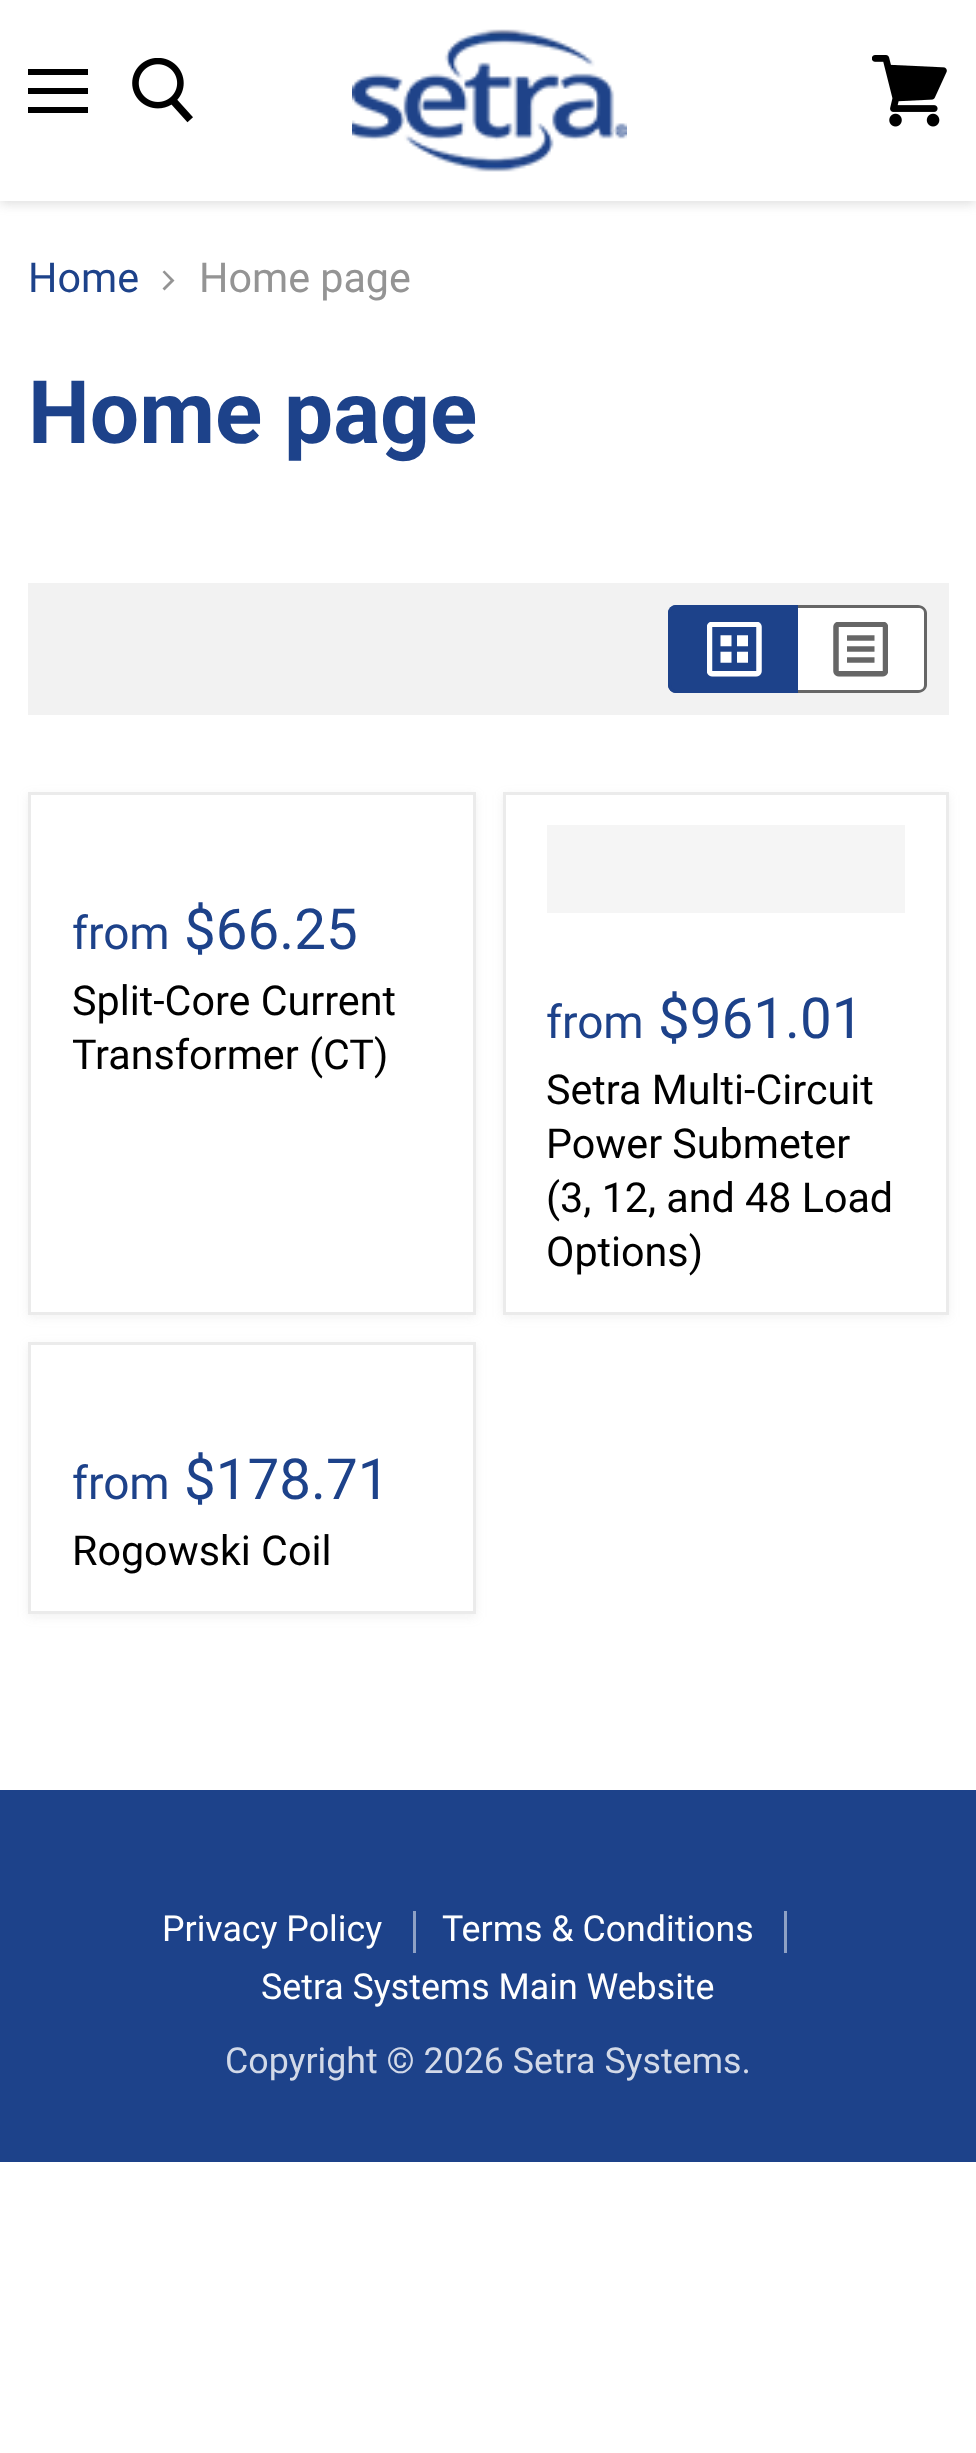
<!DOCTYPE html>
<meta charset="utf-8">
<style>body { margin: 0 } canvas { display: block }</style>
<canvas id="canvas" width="976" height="2453"></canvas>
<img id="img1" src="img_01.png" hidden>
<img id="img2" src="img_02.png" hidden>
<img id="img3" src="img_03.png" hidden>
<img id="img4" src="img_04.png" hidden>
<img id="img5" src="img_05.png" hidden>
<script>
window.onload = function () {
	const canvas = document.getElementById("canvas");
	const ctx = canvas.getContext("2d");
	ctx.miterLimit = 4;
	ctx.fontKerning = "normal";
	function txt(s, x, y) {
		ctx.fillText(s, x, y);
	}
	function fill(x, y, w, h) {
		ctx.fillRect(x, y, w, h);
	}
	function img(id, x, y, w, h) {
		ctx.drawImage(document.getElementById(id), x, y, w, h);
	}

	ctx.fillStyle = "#FFFFFF";
	fill(0, 0, 976, 2453);
	ctx.fillStyle = "rgba(128, 128, 128, 0.25)";
	ctx.filter = "blur(5.5px)";
	ctx.beginPath();
	ctx.rect(0, 3, 976, 201);
	ctx.fill();
	ctx.filter = "none";
	ctx.fillStyle = "#FFFFFF";
	fill(0, 0, 976, 201);
	ctx.fillStyle = "#000000";
	fill(28, 69, 60, 6);
	fill(28, 88, 60, 6);
	fill(28, 107, 60, 6);
	img("img1", 132, 58, 61, 65);
	img("img2", 352, 29, 275, 143);
	img("img3", 872, 55, 75, 72);
	ctx.fillStyle = "#949494";
	ctx.beginPath();
	ctx.moveTo(162.5, 288.5);
	ctx.lineTo(164.5, 290.5);
	ctx.lineTo(174.5, 280.5);
	ctx.lineTo(164.5, 270.5);
	ctx.lineTo(162.5, 272);
	ctx.lineTo(170.5, 280.5);
	ctx.closePath();
	ctx.fill("evenodd");
	ctx.fillStyle = "#F2F2F2";
	fill(28, 583, 921, 132);
	ctx.fillStyle = "#1D428A";
	ctx.beginPath();
	ctx.roundRect(668, 605, 130, 88, [8, 0, 0, 8]);
	ctx.fill();
	ctx.beginPath();
	ctx.moveTo(676, 605);
	ctx.lineTo(798, 605);
	ctx.lineTo(798, 693);
	ctx.lineTo(676, 693);
	ctx.bezierCurveTo(672, 693, 668, 689, 668, 685);
	ctx.lineTo(668, 613);
	ctx.bezierCurveTo(668, 609, 672, 605, 676, 605);
	ctx.closePath();
	ctx.moveTo(676, 608);
	ctx.lineTo(798, 608);
	ctx.lineTo(798, 690);
	ctx.lineTo(676, 690);
	ctx.bezierCurveTo(673, 690, 671, 688, 671, 685);
	ctx.lineTo(671, 613);
	ctx.bezierCurveTo(671, 610, 673, 608, 676, 608);
	ctx.closePath();
	ctx.fill("evenodd");
	img("img4", 707, 622, 55, 55);
	ctx.fillStyle = "#FFFFFF";
	ctx.beginPath();
	ctx.roundRect(798, 605, 129, 88, [0, 8, 8, 0]);
	ctx.fill();
	ctx.fillStyle = "#666666";
	ctx.beginPath();
	ctx.moveTo(798, 605);
	ctx.lineTo(918, 605);
	ctx.bezierCurveTo(923, 605, 927, 609, 927, 613);
	ctx.lineTo(927, 685);
	ctx.bezierCurveTo(927, 689, 923, 693, 918, 693);
	ctx.lineTo(798, 693);
	ctx.closePath();
	ctx.moveTo(798, 608);
	ctx.lineTo(918, 608);
	ctx.bezierCurveTo(922, 608, 924, 610, 924, 613);
	ctx.lineTo(924, 685);
	ctx.bezierCurveTo(924, 688, 922, 690, 918, 690);
	ctx.lineTo(798, 690);
	ctx.closePath();
	ctx.fill("evenodd");
	img("img5", 833, 622, 55, 55);
	ctx.fillStyle = "rgba(128, 128, 128, 0.11)";
	ctx.filter = "blur(5.5px)";
	ctx.beginPath();
	ctx.rect(28, 795, 448, 522);
	ctx.fill();
	ctx.filter = "none";
	ctx.fillStyle = "#FFFFFF";
	ctx.beginPath();
	ctx.rect(29.5, 793.5, 445, 520);
	ctx.fill();
	ctx.strokeStyle = "#EBEBEB";
	ctx.lineWidth = 3;
	ctx.stroke();
	ctx.fillStyle = "rgba(128, 128, 128, 0.11)";
	ctx.filter = "blur(5.5px)";
	ctx.beginPath();
	ctx.rect(503, 795, 446, 522);
	ctx.fill();
	ctx.filter = "none";
	ctx.fillStyle = "#FFFFFF";
	ctx.beginPath();
	ctx.rect(504.5, 793.5, 443, 520);
	ctx.fill();
	ctx.stroke();
	ctx.fillStyle = "#F5F5F5";
	fill(547, 825, 358, 88);
	ctx.fillStyle = "rgba(128, 128, 128, 0.11)";
	ctx.filter = "blur(5.5px)";
	ctx.beginPath();
	ctx.rect(28, 1345, 448, 272);
	ctx.fill();
	ctx.filter = "none";
	ctx.fillStyle = "#FFFFFF";
	ctx.beginPath();
	ctx.rect(29.5, 1343.5, 445, 269);
	ctx.fill();
	ctx.stroke();
	ctx.fillStyle = "#1D428A";
	fill(0, 1790, 976, 372);
	ctx.fillStyle = "#8EA1C5";
	fill(413, 1911, 3, 42);
	fill(784, 1911, 3, 42);
	ctx.font = "41.25px Roboto";
	ctx.fillStyle = "#1D428A";
	txt("Home", 28, 292);
	ctx.fillStyle = "#949494";
	txt("Home page", 199, 292);
	ctx.font = "bold 87.5px Roboto";
	ctx.fillStyle = "#1D428A";
	txt("Home page", 28, 443);
	ctx.font = "46px Roboto";
	txt("from", 72, 949);
	ctx.font = "56.5px Roboto";
	txt("$66.25", 184, 949);
	ctx.font = "41.25px Roboto";
	ctx.fillStyle = "#000000";
	txt("Split-Core Current", 72, 1015);
	txt("Transformer (CT)", 72, 1069);
	ctx.font = "46px Roboto";
	ctx.fillStyle = "#1D428A";
	txt("from", 546, 1038);
	ctx.font = "56.5px Roboto";
	txt("$961.01", 658, 1038);
	ctx.font = "41.25px Roboto";
	ctx.fillStyle = "#000000";
	txt("Setra Multi-Circuit", 546, 1104);
	txt("Power Submeter", 546, 1158);
	txt("(3, 12, and 48 Load", 546, 1212);
	txt("Options)", 546, 1266);
	ctx.font = "46px Roboto";
	ctx.fillStyle = "#1D428A";
	txt("from", 72, 1499);
	ctx.font = "56.5px Roboto";
	txt("$178.71", 184, 1499);
	ctx.font = "41.25px Roboto";
	ctx.fillStyle = "#000000";
	txt("Rogowski Coil", 72, 1565);
	ctx.font = "35.75px Roboto";
	ctx.fillStyle = "#FFFFFF";
	txt("Privacy Policy", 162, 1941);
	txt("Terms & Conditions", 442, 1941);
	txt("Setra Systems Main Website", 261, 1999);
	ctx.fillStyle = "#D2D9E8";
	txt("Copyright © 2026 Setra Systems.", 225, 2073);
};
</script>
